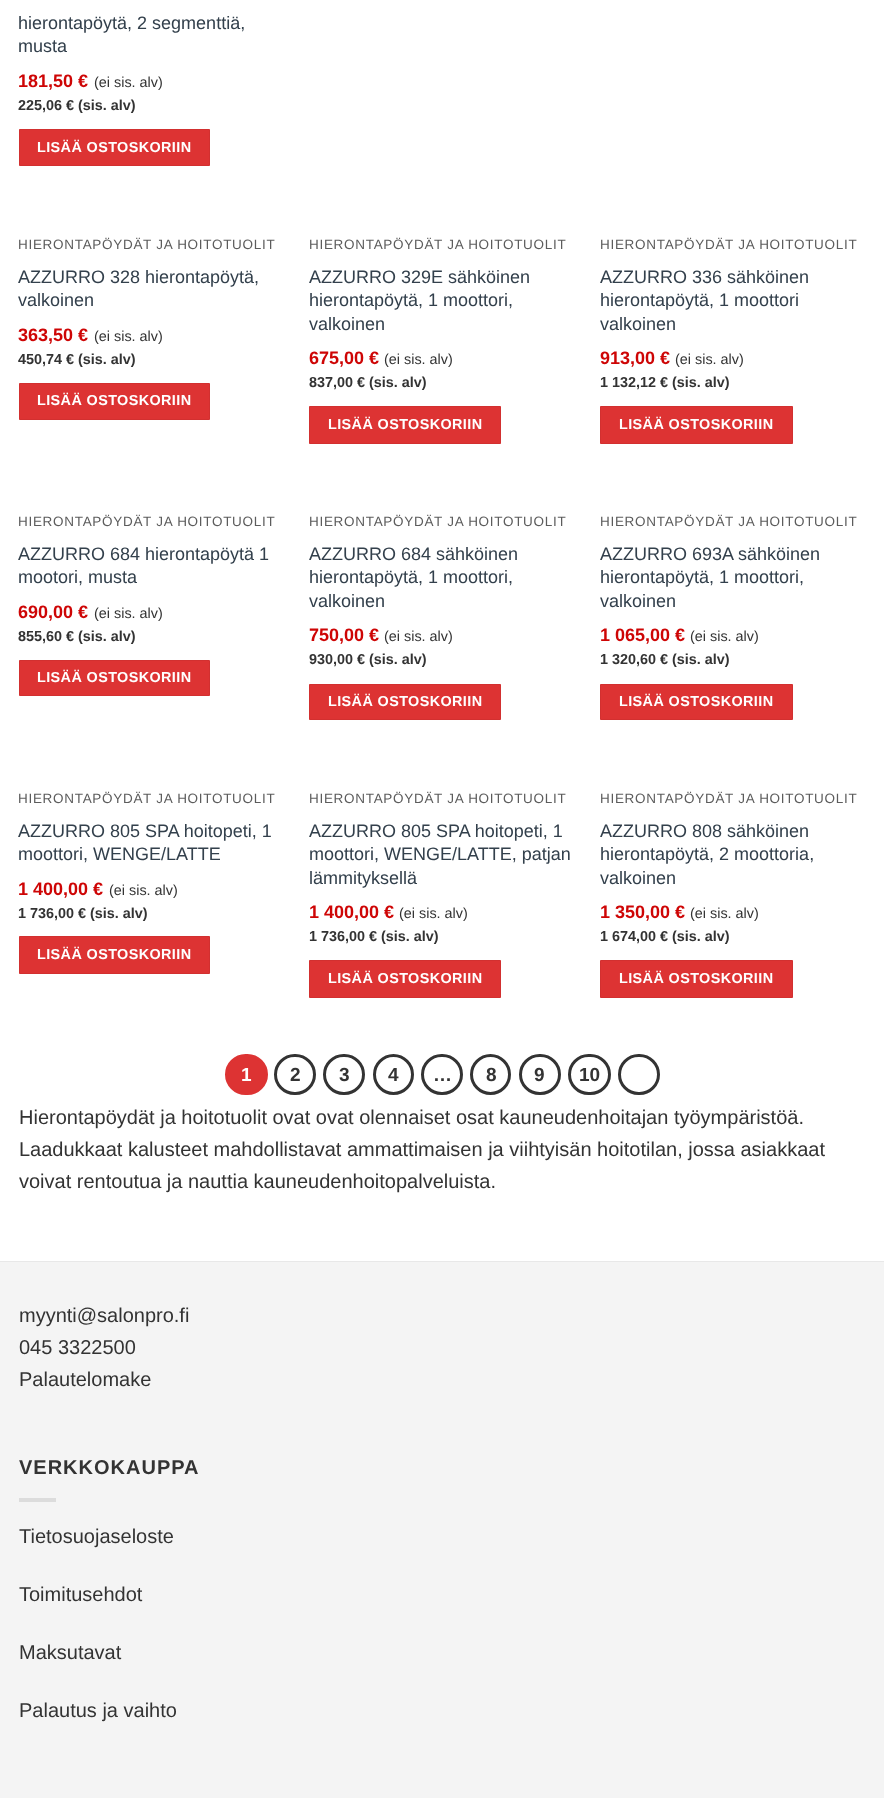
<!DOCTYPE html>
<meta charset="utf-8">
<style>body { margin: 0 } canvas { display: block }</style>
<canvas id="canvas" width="884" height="1798"></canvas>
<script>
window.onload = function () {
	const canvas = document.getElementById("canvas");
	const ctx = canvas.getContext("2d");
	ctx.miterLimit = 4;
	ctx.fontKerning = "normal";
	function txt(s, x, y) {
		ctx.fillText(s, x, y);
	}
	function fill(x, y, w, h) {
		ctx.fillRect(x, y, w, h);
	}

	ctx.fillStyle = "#FFFFFF";
	fill(0, 0, 884, 1798);
	ctx.fillStyle = "#DD3333";
	ctx.beginPath();
	ctx.rect(19.5, 129.5, 190, 36);
	ctx.fill();
	ctx.strokeStyle = "#D23030";
	ctx.stroke();
	ctx.beginPath();
	ctx.rect(19.5, 383.5, 190, 36);
	ctx.fill();
	ctx.stroke();
	ctx.beginPath();
	ctx.rect(309.5, 406.5, 191, 37);
	ctx.fill();
	ctx.stroke();
	ctx.beginPath();
	ctx.rect(600.5, 406.5, 192, 37);
	ctx.fill();
	ctx.stroke();
	ctx.beginPath();
	ctx.rect(19.5, 660.5, 190, 35);
	ctx.fill();
	ctx.stroke();
	ctx.beginPath();
	ctx.rect(309.5, 684.5, 191, 35);
	ctx.fill();
	ctx.stroke();
	ctx.beginPath();
	ctx.rect(600.5, 684.5, 192, 35);
	ctx.fill();
	ctx.stroke();
	ctx.beginPath();
	ctx.rect(19.5, 936.5, 190, 37);
	ctx.fill();
	ctx.stroke();
	ctx.beginPath();
	ctx.rect(309.5, 960.5, 191, 37);
	ctx.fill();
	ctx.stroke();
	ctx.beginPath();
	ctx.rect(600.5, 960.5, 192, 37);
	ctx.fill();
	ctx.stroke();
	ctx.beginPath();
	ctx.roundRect(226.5, 1055.5, 40, 38, 19);
	ctx.fill();
	ctx.strokeStyle = "#DD3333";
	ctx.lineWidth = 3;
	ctx.stroke();
	ctx.beginPath();
	ctx.roundRect(275.5, 1055.5, 39, 38, 19);
	ctx.strokeStyle = "#333333";
	ctx.stroke();
	ctx.beginPath();
	ctx.roundRect(324.5, 1055.5, 39, 38, 19);
	ctx.stroke();
	ctx.beginPath();
	ctx.arc(393.5, 1074.5, 19, 0, Math.PI * 2);
	ctx.stroke();
	ctx.beginPath();
	ctx.roundRect(422.5, 1055.5, 39, 38, 19);
	ctx.stroke();
	ctx.beginPath();
	ctx.arc(490.5, 1074.5, 19, 0, Math.PI * 2);
	ctx.stroke();
	ctx.beginPath();
	ctx.roundRect(520.5, 1055.5, 39, 38, 19);
	ctx.stroke();
	ctx.beginPath();
	ctx.roundRect(569.5, 1055.5, 40, 38, 19);
	ctx.stroke();
	ctx.beginPath();
	ctx.roundRect(619.5, 1055.5, 39, 38, 19);
	ctx.stroke();
	ctx.fillStyle = "#F4F4F4";
	fill(0, 1262, 884, 536);
	ctx.fillStyle = "#E8E8E8";
	fill(0, 1261, 884, 1);
	ctx.fillStyle = "#DCDCDC";
	fill(19, 1498, 37, 4);
	ctx.font = "18px Liberation Sans";
	ctx.fillStyle = "#33404C";
	txt("hierontapöytä, 2 segmenttiä,", 18, 29);
	txt("musta", 18, 52);
	ctx.font = "bold 18px Liberation Sans";
	ctx.fillStyle = "#CE0505";
	txt("181,50 €", 18, 87);
	ctx.font = "14.4px Liberation Sans";
	ctx.fillStyle = "#333333";
	txt("(ei sis. alv)", 94, 87);
	ctx.font = "bold 14.4px Liberation Sans";
	txt("225,06 € (sis. alv)", 18, 110);
	ctx.letterSpacing = "0.4px";
	ctx.fillStyle = "#FFFFFF";
	txt("LISÄÄ OSTOSKORIIN", 37, 152);
	ctx.letterSpacing = "0.7px";
	ctx.font = "13.5px Liberation Sans";
	ctx.fillStyle = "#5C5C5C";
	txt("HIERONTAPÖYDÄT JA HOITOTUOLIT", 18, 249);
	ctx.letterSpacing = "0px";
	ctx.font = "18px Liberation Sans";
	ctx.fillStyle = "#33404C";
	txt("AZZURRO 328 hierontapöytä,", 18, 283);
	txt("valkoinen", 18, 306);
	ctx.font = "bold 18px Liberation Sans";
	ctx.fillStyle = "#CE0505";
	txt("363,50 €", 18, 341);
	ctx.font = "14.4px Liberation Sans";
	ctx.fillStyle = "#333333";
	txt("(ei sis. alv)", 94, 341);
	ctx.font = "bold 14.4px Liberation Sans";
	txt("450,74 € (sis. alv)", 18, 364);
	ctx.letterSpacing = "0.4px";
	ctx.fillStyle = "#FFFFFF";
	txt("LISÄÄ OSTOSKORIIN", 37, 405);
	ctx.letterSpacing = "0.7px";
	ctx.font = "13.5px Liberation Sans";
	ctx.fillStyle = "#5C5C5C";
	txt("HIERONTAPÖYDÄT JA HOITOTUOLIT", 309, 249);
	ctx.letterSpacing = "0px";
	ctx.font = "18px Liberation Sans";
	ctx.fillStyle = "#33404C";
	txt("AZZURRO 329E sähköinen", 309, 283);
	txt("hierontapöytä, 1 moottori,", 309, 306);
	txt("valkoinen", 309, 330);
	ctx.font = "bold 18px Liberation Sans";
	ctx.fillStyle = "#CE0505";
	txt("675,00 €", 309, 364);
	ctx.font = "14.4px Liberation Sans";
	ctx.fillStyle = "#333333";
	txt("(ei sis. alv)", 384, 364);
	ctx.font = "bold 14.4px Liberation Sans";
	txt("837,00 € (sis. alv)", 309, 387);
	ctx.letterSpacing = "0.4px";
	ctx.fillStyle = "#FFFFFF";
	txt("LISÄÄ OSTOSKORIIN", 328, 429);
	ctx.letterSpacing = "0.7px";
	ctx.font = "13.5px Liberation Sans";
	ctx.fillStyle = "#5C5C5C";
	txt("HIERONTAPÖYDÄT JA HOITOTUOLIT", 600, 249);
	ctx.letterSpacing = "0px";
	ctx.font = "18px Liberation Sans";
	ctx.fillStyle = "#33404C";
	txt("AZZURRO 336 sähköinen", 600, 283);
	txt("hierontapöytä, 1 moottori", 600, 306);
	txt("valkoinen", 600, 330);
	ctx.font = "bold 18px Liberation Sans";
	ctx.fillStyle = "#CE0505";
	txt("913,00 €", 600, 364);
	ctx.font = "14.4px Liberation Sans";
	ctx.fillStyle = "#333333";
	txt("(ei sis. alv)", 675, 364);
	ctx.font = "bold 14.4px Liberation Sans";
	txt("1 132,12 € (sis. alv)", 600, 387);
	ctx.letterSpacing = "0.4px";
	ctx.fillStyle = "#FFFFFF";
	txt("LISÄÄ OSTOSKORIIN", 619, 429);
	ctx.letterSpacing = "0.7px";
	ctx.font = "13.5px Liberation Sans";
	ctx.fillStyle = "#5C5C5C";
	txt("HIERONTAPÖYDÄT JA HOITOTUOLIT", 18, 526);
	ctx.letterSpacing = "0px";
	ctx.font = "18px Liberation Sans";
	ctx.fillStyle = "#33404C";
	txt("AZZURRO 684 hierontapöytä 1", 18, 560);
	txt("mootori, musta", 18, 583);
	ctx.font = "bold 18px Liberation Sans";
	ctx.fillStyle = "#CE0505";
	txt("690,00 €", 18, 618);
	ctx.font = "14.4px Liberation Sans";
	ctx.fillStyle = "#333333";
	txt("(ei sis. alv)", 94, 618);
	ctx.font = "bold 14.4px Liberation Sans";
	txt("855,60 € (sis. alv)", 18, 641);
	ctx.letterSpacing = "0.4px";
	ctx.fillStyle = "#FFFFFF";
	txt("LISÄÄ OSTOSKORIIN", 37, 682);
	ctx.letterSpacing = "0.7px";
	ctx.font = "13.5px Liberation Sans";
	ctx.fillStyle = "#5C5C5C";
	txt("HIERONTAPÖYDÄT JA HOITOTUOLIT", 309, 526);
	ctx.letterSpacing = "0px";
	ctx.font = "18px Liberation Sans";
	ctx.fillStyle = "#33404C";
	txt("AZZURRO 684 sähköinen", 309, 560);
	txt("hierontapöytä, 1 moottori,", 309, 583);
	txt("valkoinen", 309, 607);
	ctx.font = "bold 18px Liberation Sans";
	ctx.fillStyle = "#CE0505";
	txt("750,00 €", 309, 641);
	ctx.font = "14.4px Liberation Sans";
	ctx.fillStyle = "#333333";
	txt("(ei sis. alv)", 384, 641);
	ctx.font = "bold 14.4px Liberation Sans";
	txt("930,00 € (sis. alv)", 309, 664);
	ctx.letterSpacing = "0.4px";
	ctx.fillStyle = "#FFFFFF";
	txt("LISÄÄ OSTOSKORIIN", 328, 706);
	ctx.letterSpacing = "0.7px";
	ctx.font = "13.5px Liberation Sans";
	ctx.fillStyle = "#5C5C5C";
	txt("HIERONTAPÖYDÄT JA HOITOTUOLIT", 600, 526);
	ctx.letterSpacing = "0px";
	ctx.font = "18px Liberation Sans";
	ctx.fillStyle = "#33404C";
	txt("AZZURRO 693A sähköinen", 600, 560);
	txt("hierontapöytä, 1 moottori,", 600, 583);
	txt("valkoinen", 600, 607);
	ctx.font = "bold 18px Liberation Sans";
	ctx.fillStyle = "#CE0505";
	txt("1 065,00 €", 600, 641);
	ctx.font = "14.4px Liberation Sans";
	ctx.fillStyle = "#333333";
	txt("(ei sis. alv)", 690, 641);
	ctx.font = "bold 14.4px Liberation Sans";
	txt("1 320,60 € (sis. alv)", 600, 664);
	ctx.letterSpacing = "0.4px";
	ctx.fillStyle = "#FFFFFF";
	txt("LISÄÄ OSTOSKORIIN", 619, 706);
	ctx.letterSpacing = "0.7px";
	ctx.font = "13.5px Liberation Sans";
	ctx.fillStyle = "#5C5C5C";
	txt("HIERONTAPÖYDÄT JA HOITOTUOLIT", 18, 803);
	ctx.letterSpacing = "0px";
	ctx.font = "18px Liberation Sans";
	ctx.fillStyle = "#33404C";
	txt("AZZURRO 805 SPA hoitopeti, 1", 18, 837);
	txt("moottori, WENGE/LATTE", 18, 860);
	ctx.font = "bold 18px Liberation Sans";
	ctx.fillStyle = "#CE0505";
	txt("1 400,00 €", 18, 895);
	ctx.font = "14.4px Liberation Sans";
	ctx.fillStyle = "#333333";
	txt("(ei sis. alv)", 109, 895);
	ctx.font = "bold 14.4px Liberation Sans";
	txt("1 736,00 € (sis. alv)", 18, 918);
	ctx.letterSpacing = "0.4px";
	ctx.fillStyle = "#FFFFFF";
	txt("LISÄÄ OSTOSKORIIN", 37, 959);
	ctx.letterSpacing = "0.7px";
	ctx.font = "13.5px Liberation Sans";
	ctx.fillStyle = "#5C5C5C";
	txt("HIERONTAPÖYDÄT JA HOITOTUOLIT", 309, 803);
	ctx.letterSpacing = "0px";
	ctx.font = "18px Liberation Sans";
	ctx.fillStyle = "#33404C";
	txt("AZZURRO 805 SPA hoitopeti, 1", 309, 837);
	txt("moottori, WENGE/LATTE, patjan", 309, 860);
	txt("lämmityksellä", 309, 884);
	ctx.font = "bold 18px Liberation Sans";
	ctx.fillStyle = "#CE0505";
	txt("1 400,00 €", 309, 918);
	ctx.font = "14.4px Liberation Sans";
	ctx.fillStyle = "#333333";
	txt("(ei sis. alv)", 399, 918);
	ctx.font = "bold 14.4px Liberation Sans";
	txt("1 736,00 € (sis. alv)", 309, 941);
	ctx.letterSpacing = "0.4px";
	ctx.fillStyle = "#FFFFFF";
	txt("LISÄÄ OSTOSKORIIN", 328, 983);
	ctx.letterSpacing = "0.7px";
	ctx.font = "13.5px Liberation Sans";
	ctx.fillStyle = "#5C5C5C";
	txt("HIERONTAPÖYDÄT JA HOITOTUOLIT", 600, 803);
	ctx.letterSpacing = "0px";
	ctx.font = "18px Liberation Sans";
	ctx.fillStyle = "#33404C";
	txt("AZZURRO 808 sähköinen", 600, 837);
	txt("hierontapöytä, 2 moottoria,", 600, 860);
	txt("valkoinen", 600, 884);
	ctx.font = "bold 18px Liberation Sans";
	ctx.fillStyle = "#CE0505";
	txt("1 350,00 €", 600, 918);
	ctx.font = "14.4px Liberation Sans";
	ctx.fillStyle = "#333333";
	txt("(ei sis. alv)", 690, 918);
	ctx.font = "bold 14.4px Liberation Sans";
	txt("1 674,00 € (sis. alv)", 600, 941);
	ctx.letterSpacing = "0.4px";
	ctx.fillStyle = "#FFFFFF";
	txt("LISÄÄ OSTOSKORIIN", 619, 983);
	ctx.letterSpacing = "0px";
	ctx.font = "bold 19px Liberation Sans";
	txt("1", 241, 1081);
	ctx.fillStyle = "#333333";
	txt("2", 290, 1081);
	txt("3", 339, 1081);
	txt("4", 388, 1081);
	txt("…", 433, 1081);
	txt("8", 486, 1081);
	txt("9", 534, 1081);
	txt("10", 579, 1081);
	ctx.font = "20px Liberation Sans";
	txt("Hierontapöydät ja hoitotuolit ovat ovat olennaiset osat kauneudenhoitajan työympäristöä.", 19, 1124);
	txt("Laadukkaat kalusteet mahdollistavat ammattimaisen ja viihtyisän hoitotilan, jossa asiakkaat", 19, 1156);
	txt("voivat rentoutua ja nauttia kauneudenhoitopalveluista.", 19, 1188);
	txt("myynti@salonpro.fi", 19, 1322);
	txt("045 3322500", 19, 1354);
	txt("Palautelomake", 19, 1386);
	ctx.letterSpacing = "1px";
	ctx.font = "bold 20px Liberation Sans";
	txt("VERKKOKAUPPA", 19, 1474);
	ctx.letterSpacing = "0px";
	ctx.font = "20px Liberation Sans";
	txt("Tietosuojaseloste", 19, 1543);
	txt("Toimitusehdot", 19, 1601);
	txt("Maksutavat", 19, 1659);
	txt("Palautus ja vaihto", 19, 1717);
};
</script>
